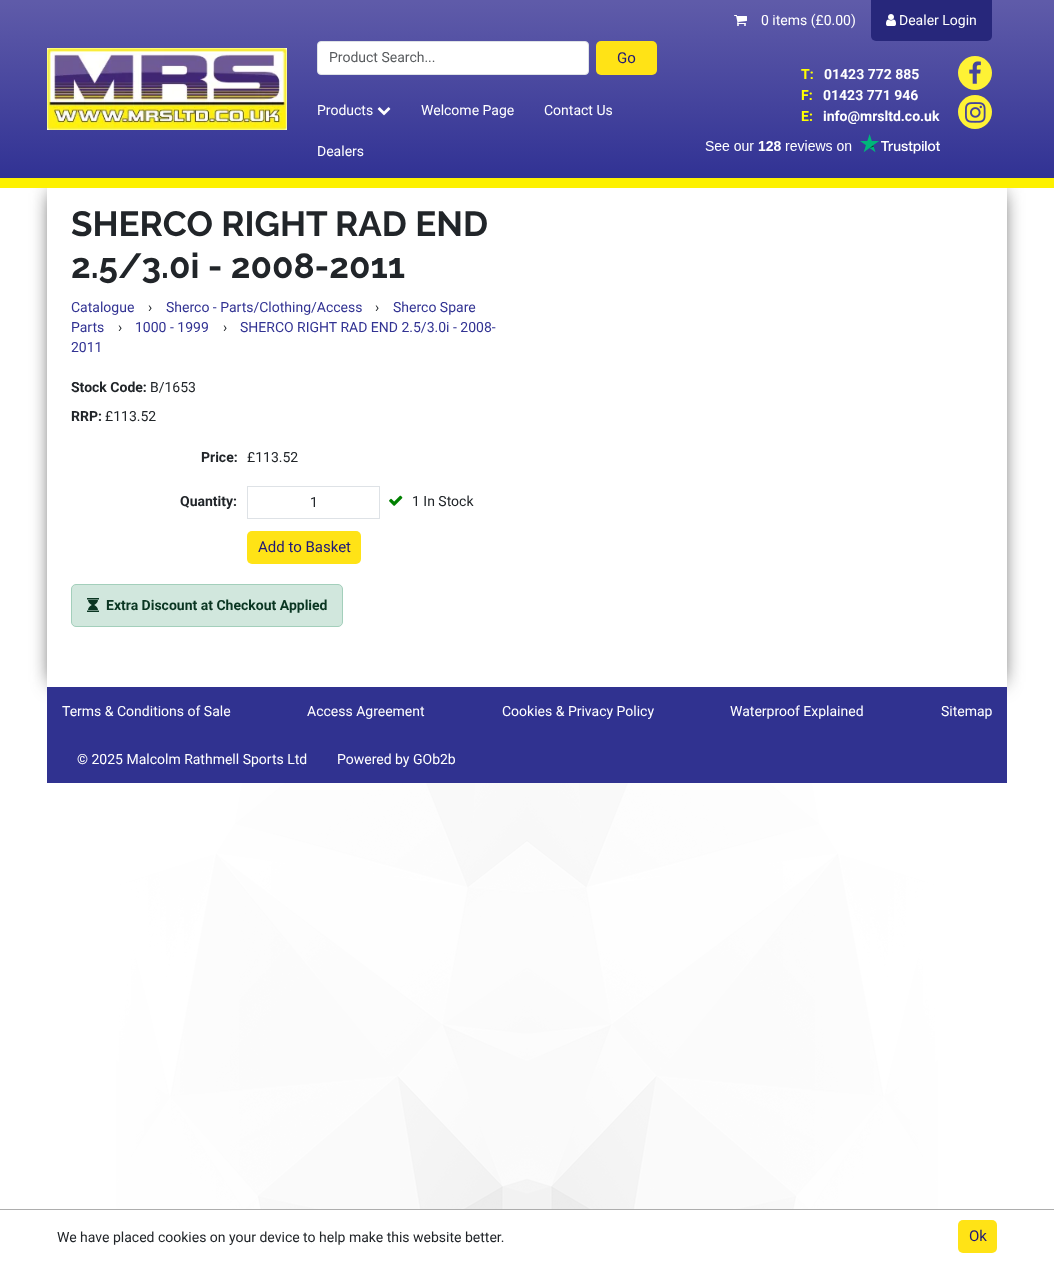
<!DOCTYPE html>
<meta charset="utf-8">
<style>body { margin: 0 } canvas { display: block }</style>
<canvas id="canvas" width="1054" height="1264"></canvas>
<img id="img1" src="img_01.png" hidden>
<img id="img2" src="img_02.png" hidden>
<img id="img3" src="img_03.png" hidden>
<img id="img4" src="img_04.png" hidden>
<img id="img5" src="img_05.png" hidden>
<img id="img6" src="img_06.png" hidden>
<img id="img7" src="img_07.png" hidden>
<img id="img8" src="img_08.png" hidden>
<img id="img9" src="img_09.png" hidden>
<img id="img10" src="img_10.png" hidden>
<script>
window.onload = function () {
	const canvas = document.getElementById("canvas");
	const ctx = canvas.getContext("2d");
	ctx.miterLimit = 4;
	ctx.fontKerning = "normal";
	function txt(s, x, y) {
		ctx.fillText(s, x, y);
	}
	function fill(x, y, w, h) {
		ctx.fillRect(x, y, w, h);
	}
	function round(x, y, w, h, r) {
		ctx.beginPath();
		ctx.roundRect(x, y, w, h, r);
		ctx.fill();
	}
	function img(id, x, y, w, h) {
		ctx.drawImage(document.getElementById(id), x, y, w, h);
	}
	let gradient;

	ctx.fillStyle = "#FFFFFF";
	fill(0, 0, 1054, 1264);
	img("img1", 116, 783, 822, 426);
	ctx.fillStyle = "#333333";
	ctx.filter = "blur(10px)";
	ctx.beginPath();
	ctx.rect(52, 193, 950, 489);
	ctx.fill();
	ctx.filter = "none";
	gradient = ctx.createLinearGradient(527, 0, 527, 178);
	gradient.addColorStop(0.01, "#5F5BA9");
	gradient.addColorStop(1, "#313294");
	ctx.fillStyle = gradient;
	fill(0, 0, 1054, 178);
	ctx.fillStyle = "#FDF100";
	fill(0, 178, 1054, 10);
	img("img2", 47, 48, 240, 82);
	ctx.fillStyle = "#FFFFFF";
	ctx.beginPath();
	ctx.roundRect(317.5, 41.5, 271, 33, 3.5);
	ctx.fill();
	ctx.strokeStyle = "#DEE2E6";
	ctx.stroke();
	ctx.fillStyle = "#FFE316";
	round(596, 41, 61, 34, 5);
	img("img3", 377, 107, 14, 9);
	img("img4", 734, 15, 13, 11);
	ctx.fillStyle = "#27277B";
	ctx.beginPath();
	ctx.roundRect(871, 0, 121, 41, [0, 0, 5, 5]);
	ctx.fill();
	img("img5", 886, 14, 10, 12);
	ctx.fillStyle = "#FEF235";
	ctx.beginPath();
	ctx.arc(975, 73, 17, 0, Math.PI * 2);
	ctx.fill();
	img("img6", 969, 61, 12, 23);
	ctx.beginPath();
	ctx.arc(975, 112, 17, 0, Math.PI * 2);
	ctx.fill();
	img("img7", 965, 102, 21, 21);
	img("img8", 705, 134, 235, 20);
	ctx.fillStyle = "#FFFFFF";
	fill(47, 188, 960, 499);
	ctx.strokeRect(247.5, 486.5, 132, 32);
	img("img9", 389, 495, 14, 11);
	ctx.fillStyle = "#FFE316";
	round(247, 531, 114, 33, 5);
	ctx.fillStyle = "#D1E7DD";
	ctx.beginPath();
	ctx.roundRect(71.5, 584.5, 271, 42, 4.5);
	ctx.fill();
	ctx.strokeStyle = "#A3CFBB";
	ctx.stroke();
	img("img10", 87, 598, 12, 14);
	ctx.fillStyle = "#303290";
	fill(47, 687, 960, 96);
	ctx.fillStyle = "#ADADAD";
	fill(0, 1209, 1054, 1);
	ctx.fillStyle = "#FFE316";
	round(958, 1220, 39, 33, 5);
	ctx.font = "14px Roboto";
	ctx.fillStyle = "#595C5F";
	txt("Product Search...", 329, 62);
	ctx.font = "15px Roboto";
	ctx.fillStyle = "#1F1878";
	txt("Go", 617, 63);
	ctx.font = "14px Roboto";
	ctx.fillStyle = "#FFFFFF";
	txt("Products", 317, 115);
	txt("Welcome Page", 421, 115);
	txt("Contact Us", 544, 115);
	txt("Dealers", 317, 156);
	txt("0 items (£0.00)", 761, 25);
	txt("Dealer Login", 899, 25);
	ctx.font = "bold 14px Roboto";
	ctx.fillStyle = "#FFFF00";
	txt("T:", 801, 79);
	ctx.fillStyle = "#FFFFFF";
	txt("01423 772 885", 824, 79);
	ctx.fillStyle = "#FFFF00";
	txt("F:", 801, 100);
	ctx.fillStyle = "#FFFFFF";
	txt("01423 771 946", 823, 100);
	ctx.fillStyle = "#FFFF00";
	txt("E:", 801, 121);
	ctx.fillStyle = "#FFFFFF";
	txt("info@mrsltd.co.uk", 823, 121);
	ctx.font = "bold 35px Raleway";
	ctx.fillStyle = "#212529";
	txt("SHERCO RIGHT RAD END", 71, 236);
	txt("2.5/3.0i - 2008-2011", 71, 278);
	ctx.font = "14px Roboto";
	ctx.fillStyle = "#323393";
	txt("Catalogue", 71, 312);
	ctx.fillStyle = "#212529";
	txt("›", 148, 312);
	ctx.fillStyle = "#323393";
	txt("Sherco - Parts/Clothing/Access", 166, 312);
	ctx.fillStyle = "#212529";
	txt("›", 375, 312);
	ctx.fillStyle = "#323393";
	txt("Sherco Spare", 393, 312);
	txt("Parts", 71, 332);
	ctx.fillStyle = "#212529";
	txt("›", 118, 332);
	ctx.fillStyle = "#323393";
	txt("1000 - 1999", 135, 332);
	ctx.fillStyle = "#212529";
	txt("›", 223, 332);
	ctx.fillStyle = "#323393";
	txt("SHERCO RIGHT RAD END 2.5/3.0i - 2008-", 240, 332);
	txt("2011", 71, 352);
	ctx.font = "bold 14px Roboto";
	ctx.fillStyle = "#212529";
	txt("Stock Code:", 71, 392);
	ctx.font = "14px Roboto";
	txt("B/1653", 150, 392);
	ctx.font = "bold 14px Roboto";
	txt("RRP:", 71, 421);
	ctx.font = "14px Roboto";
	txt("£113.52", 105, 421);
	ctx.font = "bold 14px Roboto";
	txt("Price:", 201, 462);
	ctx.font = "14px Roboto";
	txt("£113.52", 247, 462);
	ctx.font = "bold 14px Roboto";
	txt("Quantity:", 180, 506);
	ctx.font = "14px Roboto";
	txt("1", 310, 507);
	txt("1 In Stock", 412, 506);
	ctx.font = "15px Roboto";
	ctx.fillStyle = "#1F1878";
	txt("Add to Basket", 258, 552);
	ctx.font = "bold 14px Roboto";
	ctx.fillStyle = "#0A3622";
	txt("Extra Discount at Checkout Applied", 106, 610);
	ctx.font = "14px Roboto";
	ctx.fillStyle = "#FFFFFF";
	txt("Terms & Conditions of Sale", 62, 716);
	txt("Access Agreement", 307, 716);
	txt("Cookies & Privacy Policy", 502, 716);
	txt("Waterproof Explained", 730, 716);
	txt("Sitemap", 941, 716);
	txt("© 2025 Malcolm Rathmell Sports Ltd", 77, 764);
	txt("Powered by GOb2b", 337, 764);
	ctx.fillStyle = "#212529";
	txt("We have placed cookies on your device to help make this website better.", 57, 1242);
	ctx.font = "15px Roboto";
	ctx.fillStyle = "#1F1878";
	txt("Ok", 969, 1241);
};
</script>
